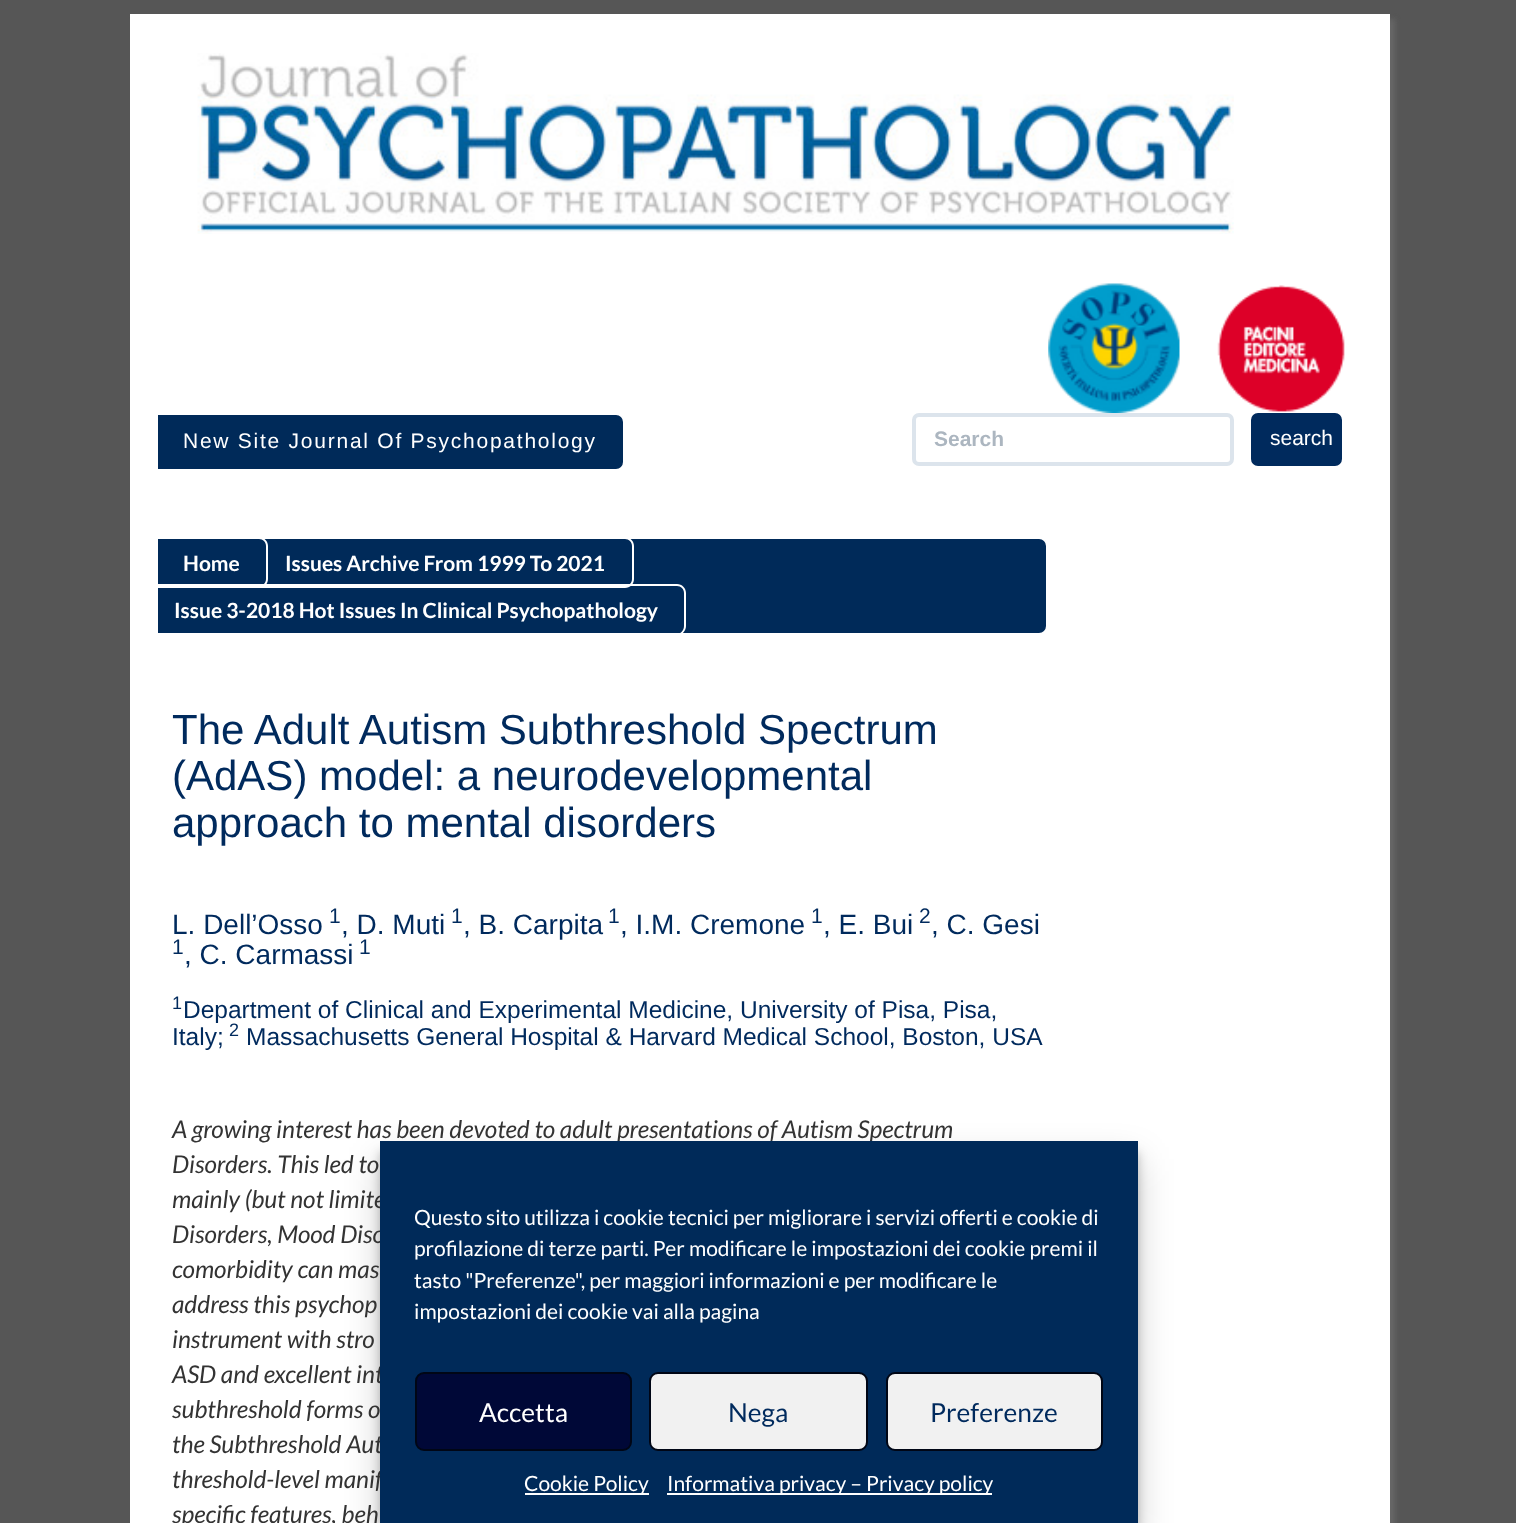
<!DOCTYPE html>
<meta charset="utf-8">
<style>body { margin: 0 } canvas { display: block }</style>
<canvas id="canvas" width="1516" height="1523"></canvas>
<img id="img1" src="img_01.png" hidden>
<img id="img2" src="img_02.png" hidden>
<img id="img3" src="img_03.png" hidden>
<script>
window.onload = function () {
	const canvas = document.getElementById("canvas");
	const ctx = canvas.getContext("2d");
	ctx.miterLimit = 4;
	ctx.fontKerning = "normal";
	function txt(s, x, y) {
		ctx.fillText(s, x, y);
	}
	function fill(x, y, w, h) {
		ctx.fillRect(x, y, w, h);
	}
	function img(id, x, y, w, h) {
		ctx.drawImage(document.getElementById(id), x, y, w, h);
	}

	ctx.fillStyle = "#565656";
	fill(0, 0, 1516, 1523);
	ctx.fillStyle = "#666666";
	ctx.filter = "blur(2.5px)";
	ctx.beginPath();
	ctx.rect(135, 19, 1260, 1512);
	ctx.fill();
	ctx.filter = "none";
	ctx.fillStyle = "#FFFFFF";
	fill(130, 14, 1260, 1509);
	img("img1", 197, 53, 1037, 181);
	img("img2", 1048, 283, 132, 130);
	img("img3", 1217, 285, 128, 127);
	ctx.fillStyle = "#002A59";
	ctx.beginPath();
	ctx.roundRect(157, 414, 467, 56, [0, 8, 8, 0]);
	ctx.fill();
	ctx.strokeStyle = "#FFFFFF";
	ctx.lineWidth = 2;
	ctx.stroke();
	ctx.beginPath();
	ctx.roundRect(914, 415, 318, 49, 5);
	ctx.strokeStyle = "#DCE4EC";
	ctx.lineWidth = 4;
	ctx.stroke();
	ctx.fillStyle = "#002A5D";
	ctx.beginPath();
	ctx.roundRect(1252, 414, 89, 51, 6);
	ctx.fill();
	ctx.strokeStyle = "#002A5D";
	ctx.lineWidth = 2;
	ctx.stroke();
	ctx.fillStyle = "#002A59";
	ctx.beginPath();
	ctx.roundRect(157, 538, 890, 96, [0, 8, 8, 0]);
	ctx.fill();
	ctx.strokeStyle = "#FFFFFF";
	ctx.stroke();
	ctx.fillStyle = "#FFFFFF";
	ctx.beginPath();
	ctx.moveTo(158, 537);
	ctx.lineTo(259, 537);
	ctx.bezierCurveTo(264, 537, 268, 541, 268, 546);
	ctx.lineTo(268, 579);
	ctx.bezierCurveTo(268, 584, 264, 588, 259, 588);
	ctx.lineTo(158, 588);
	ctx.closePath();
	ctx.moveTo(158, 539);
	ctx.lineTo(259, 539);
	ctx.bezierCurveTo(263, 539, 266, 542, 266, 546);
	ctx.lineTo(266, 579);
	ctx.bezierCurveTo(266, 583, 263, 586, 259, 586);
	ctx.lineTo(158, 586);
	ctx.closePath();
	ctx.fill("evenodd");
	ctx.beginPath();
	ctx.moveTo(259, 537);
	ctx.lineTo(625, 537);
	ctx.bezierCurveTo(630, 537, 634, 541, 634, 546);
	ctx.lineTo(634, 579);
	ctx.bezierCurveTo(634, 584, 630, 588, 625, 588);
	ctx.lineTo(259, 588);
	ctx.closePath();
	ctx.moveTo(259, 539);
	ctx.lineTo(625, 539);
	ctx.bezierCurveTo(629, 539, 632, 542, 632, 546);
	ctx.lineTo(632, 579);
	ctx.bezierCurveTo(632, 583, 629, 586, 625, 586);
	ctx.lineTo(259, 586);
	ctx.closePath();
	ctx.fill("evenodd");
	ctx.beginPath();
	ctx.moveTo(149, 584);
	ctx.lineTo(677, 584);
	ctx.bezierCurveTo(682, 584, 686, 588, 686, 593);
	ctx.lineTo(686, 626);
	ctx.bezierCurveTo(686, 631, 682, 635, 677, 635);
	ctx.lineTo(149, 635);
	ctx.closePath();
	ctx.moveTo(149, 586);
	ctx.lineTo(677, 586);
	ctx.bezierCurveTo(681, 586, 684, 589, 684, 593);
	ctx.lineTo(684, 626);
	ctx.bezierCurveTo(684, 630, 681, 634, 677, 634);
	ctx.lineTo(149, 634);
	ctx.closePath();
	ctx.fill("evenodd");
	ctx.fillStyle = "rgba(0, 0, 0, 0.23)";
	ctx.filter = "blur(5px)";
	ctx.beginPath();
	ctx.rect(380, 1152, 758, 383);
	ctx.fill();
	ctx.filter = "none";
	ctx.fillStyle = "rgba(0, 0, 0, 0.19)";
	ctx.filter = "blur(17.5px)";
	ctx.beginPath();
	ctx.rect(380, 1159, 758, 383);
	ctx.fill();
	ctx.filter = "none";
	ctx.letterSpacing = "1.75px";
	ctx.font = "21px Liberation Sans";
	ctx.fillStyle = "#FFFFFF";
	txt("New Site Journal Of Psychopathology", 183, 448);
	ctx.letterSpacing = "0px";
	ctx.font = "bold 21px Liberation Sans";
	ctx.fillStyle = "#ACB6C0";
	txt("Search", 934, 446);
	ctx.font = "21px Liberation Sans";
	ctx.fillStyle = "#FFFFFF";
	txt("search", 1270, 445);
	ctx.font = "bold 21px Lato";
	txt("Home", 183, 571);
	txt("Issues Archive From 1999 To 2021", 285, 571);
	txt("Issue 3-2018 Hot Issues In Clinical Psychopathology", 174, 618);
	ctx.font = "42px Liberation Sans";
	ctx.fillStyle = "#002A5D";
	txt("The Adult Autism Subthreshold Spectrum", 172, 744);
	txt("(AdAS) model: a neurodevelopmental", 172, 790);
	txt("approach to mental disorders", 172, 837);
	ctx.font = "28px Liberation Sans";
	txt("L. Dell’Osso", 172, 934);
	ctx.font = "21px Liberation Sans";
	txt("1", 329, 923);
	ctx.font = "28px Liberation Sans";
	txt(", D. Muti", 341, 934);
	ctx.font = "21px Liberation Sans";
	txt("1", 451, 923);
	ctx.font = "28px Liberation Sans";
	txt(", B. Carpita", 463, 934);
	ctx.font = "21px Liberation Sans";
	txt("1", 608, 923);
	ctx.font = "28px Liberation Sans";
	txt(", I.M. Cremone", 620, 934);
	ctx.font = "21px Liberation Sans";
	txt("1", 811, 923);
	ctx.font = "28px Liberation Sans";
	txt(", E. Bui", 823, 934);
	ctx.font = "21px Liberation Sans";
	txt("2", 919, 923);
	ctx.font = "28px Liberation Sans";
	txt(", C. Gesi", 931, 934);
	ctx.font = "21px Liberation Sans";
	txt("1", 172, 954);
	ctx.font = "28px Liberation Sans";
	txt(", C. Carmassi", 184, 964);
	ctx.font = "21px Liberation Sans";
	txt("1", 359, 954);
	ctx.font = "18px Liberation Sans";
	txt("1", 172, 1009);
	ctx.font = "24.5px Liberation Sans";
	txt("Department of Clinical and Experimental Medicine, University of Pisa, Pisa,", 183, 1018);
	txt("Italy;", 172, 1045);
	ctx.font = "18px Liberation Sans";
	txt("2", 229, 1036);
	ctx.font = "24.5px Liberation Sans";
	txt("Massachusetts General Hospital & Harvard Medical School, Boston, USA", 246, 1045);
	ctx.font = "italic 24.5px Lato";
	ctx.fillStyle = "#333333";
	txt("A growing interest has been devoted to adult presentations of Autism Spectrum", 172, 1138);
	txt("Disorders. This led to", 172, 1173);
	txt("mainly (but not limite", 172, 1208);
	txt("Disorders, Mood Diso", 172, 1243);
	txt("comorbidity can mas", 172, 1278);
	txt("address this psychop", 172, 1313);
	txt("instrument with stro", 172, 1348);
	txt("ASD and excellent int", 172, 1383);
	txt("subthreshold forms o", 172, 1418);
	txt("the Subthreshold Aut", 172, 1453);
	txt("threshold-level manif", 172, 1488);
	txt("specific features, beh", 172, 1523);
	ctx.fillStyle = "#002A59";
	fill(380, 1141, 758, 382);
	ctx.font = "21px Lato";
	ctx.fillStyle = "#FFFFFF";
	txt("Questo sito utilizza i cookie tecnici per migliorare i servizi offerti e cookie di", 414, 1225);
	txt("profilazione di terze parti. Per modificare le impostazioni dei cookie premi il", 414, 1256);
	txt("tasto \"Preferenze\", per maggiori informazioni e per modificare le", 414, 1288);
	txt("impostazioni dei cookie vai alla pagina", 414, 1319);
	ctx.fillStyle = "#000837";
	ctx.beginPath();
	ctx.roundRect(416, 1373, 215, 77, 8);
	ctx.fill();
	ctx.strokeStyle = "#000615";
	ctx.stroke();
	ctx.font = "26.25px Lato";
	ctx.fillStyle = "#FFFFFF";
	txt("Accetta", 479, 1422);
	ctx.fillStyle = "#F1F1F1";
	ctx.beginPath();
	ctx.roundRect(650, 1373, 217, 77, 8);
	ctx.fill();
	ctx.stroke();
	ctx.fillStyle = "#002A5D";
	txt("Nega", 728, 1422);
	ctx.fillStyle = "#F1F1F1";
	ctx.beginPath();
	ctx.roundRect(887, 1373, 215, 77, 8);
	ctx.fill();
	ctx.stroke();
	ctx.fillStyle = "#002A5D";
	txt("Preferenze", 930, 1422);
	ctx.fillStyle = "#FFFFFF";
	fill(525, 1493, 124, 2);
	ctx.font = "21px Lato";
	txt("Cookie Policy", 524, 1491);
	fill(667, 1493, 325, 2);
	txt("Informativa privacy – Privacy policy", 667, 1491);
};
</script>
